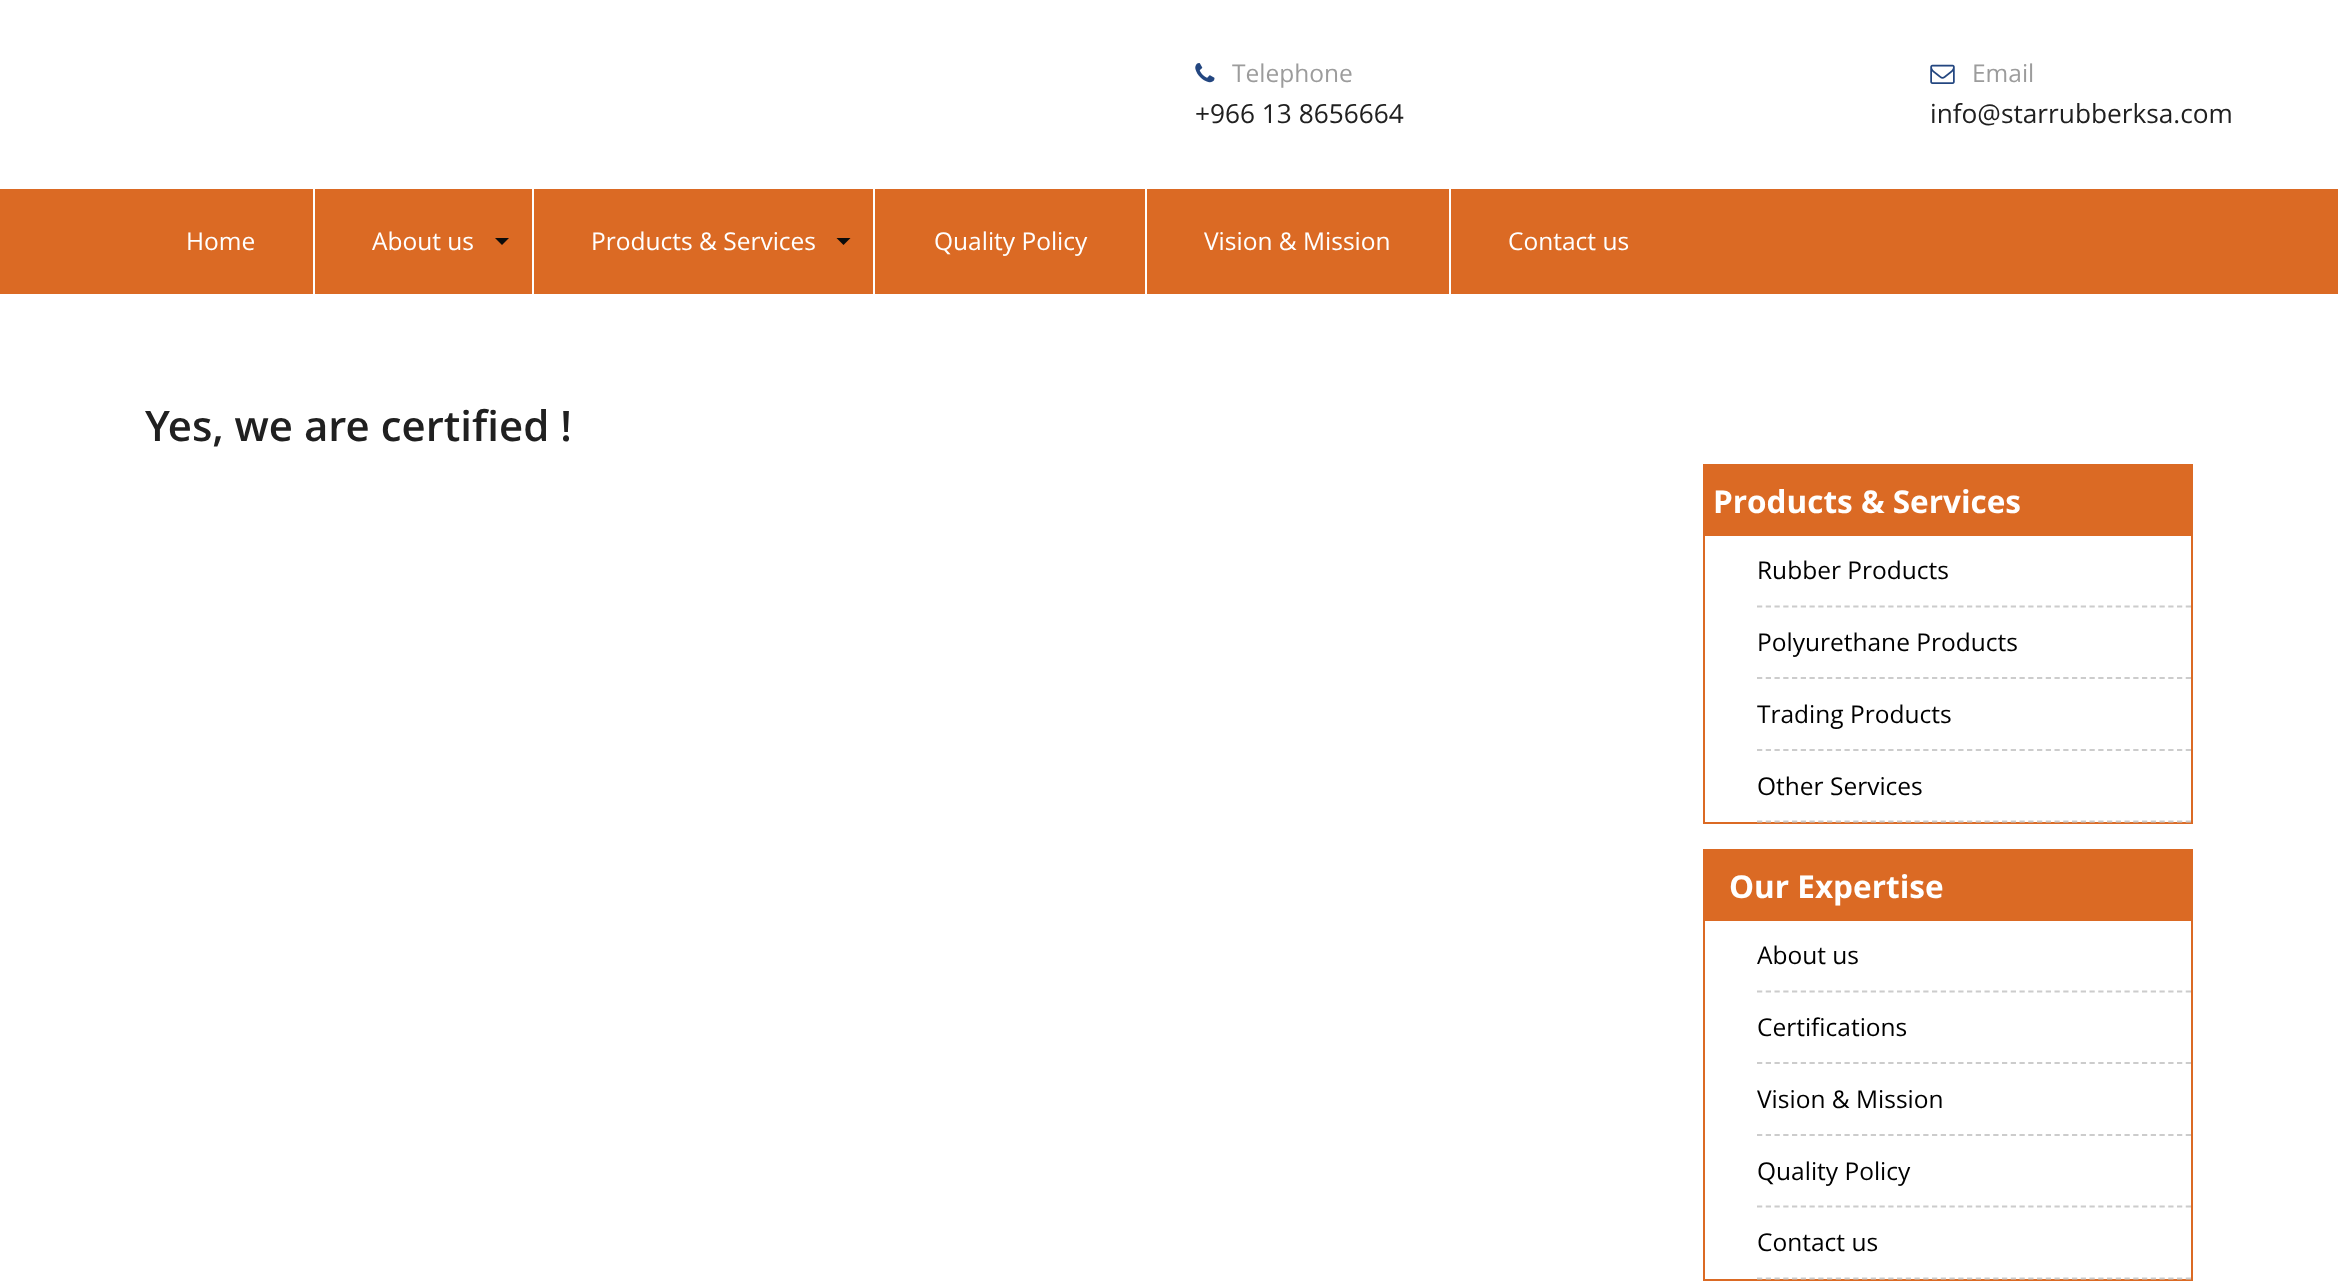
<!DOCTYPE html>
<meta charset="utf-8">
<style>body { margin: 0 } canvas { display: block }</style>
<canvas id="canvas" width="2338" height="1281"></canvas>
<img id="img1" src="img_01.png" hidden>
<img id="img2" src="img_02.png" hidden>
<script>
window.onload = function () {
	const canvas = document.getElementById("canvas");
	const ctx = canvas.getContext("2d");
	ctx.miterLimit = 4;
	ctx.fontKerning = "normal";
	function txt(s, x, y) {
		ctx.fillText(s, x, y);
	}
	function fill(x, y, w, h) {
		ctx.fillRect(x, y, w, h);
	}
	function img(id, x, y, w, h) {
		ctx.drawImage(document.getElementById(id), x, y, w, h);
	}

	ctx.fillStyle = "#FFFFFF";
	fill(0, 0, 2338, 1281);
	img("img1", 1195, 63, 20, 20);
	img("img2", 1930, 64, 25, 20);
	ctx.fillStyle = "#DB6A24";
	fill(0, 189, 2338, 105);
	ctx.fillStyle = "#FFFFFF";
	fill(313, 189, 2, 105);
	fill(532, 189, 2, 105);
	ctx.fillStyle = "#0B0B0B";
	ctx.beginPath();
	ctx.moveTo(495, 238);
	ctx.lineTo(509, 238);
	ctx.lineTo(502, 245);
	ctx.closePath();
	ctx.fill();
	ctx.fillStyle = "#FFFFFF";
	fill(873, 189, 2, 105);
	ctx.fillStyle = "#0B0B0B";
	ctx.beginPath();
	ctx.moveTo(836.5, 238);
	ctx.lineTo(850.5, 238);
	ctx.lineTo(843.5, 245);
	ctx.closePath();
	ctx.fill();
	ctx.fillStyle = "#FFFFFF";
	fill(1145, 189, 2, 105);
	fill(1449, 189, 2, 105);
	ctx.strokeStyle = "#DB6A24";
	ctx.lineWidth = 2;
	ctx.strokeRect(1704, 465, 488, 358);
	ctx.fillStyle = "#DB6A24";
	fill(1705, 466, 486, 70);
	ctx.beginPath();
	ctx.moveTo(1757, 606.5);
	ctx.lineTo(2191, 606.5);
	ctx.strokeStyle = "#CCCCCC";
	ctx.lineWidth = 1.8;
	ctx.setLineDash([5.25, 3.5]);
	ctx.stroke();
	ctx.beginPath();
	ctx.moveTo(1757, 678);
	ctx.lineTo(2191, 678);
	ctx.stroke();
	ctx.beginPath();
	ctx.moveTo(1757, 750);
	ctx.lineTo(2191, 750);
	ctx.stroke();
	ctx.beginPath();
	ctx.moveTo(1757, 821.5);
	ctx.lineTo(2191, 821.5);
	ctx.stroke();
	ctx.strokeStyle = "#DB6A24";
	ctx.lineWidth = 2;
	ctx.setLineDash([]);
	ctx.strokeRect(1704, 850, 488, 430);
	fill(1705, 851, 486, 70);
	ctx.beginPath();
	ctx.moveTo(1757, 991.5);
	ctx.lineTo(2191, 991.5);
	ctx.strokeStyle = "#CCCCCC";
	ctx.lineWidth = 1.8;
	ctx.setLineDash([5.25, 3.5]);
	ctx.stroke();
	ctx.beginPath();
	ctx.moveTo(1757, 1063);
	ctx.lineTo(2191, 1063);
	ctx.stroke();
	ctx.beginPath();
	ctx.moveTo(1757, 1135);
	ctx.lineTo(2191, 1135);
	ctx.stroke();
	ctx.beginPath();
	ctx.moveTo(1757, 1206.5);
	ctx.lineTo(2191, 1206.5);
	ctx.stroke();
	ctx.beginPath();
	ctx.moveTo(1757, 1278.5);
	ctx.lineTo(2191, 1278.5);
	ctx.stroke();
	ctx.font = "24.5px Open Sans";
	ctx.fillStyle = "#9C9C9C";
	txt("Telephone", 1232, 82);
	ctx.font = "26.25px Open Sans";
	ctx.fillStyle = "#202020";
	txt("+966 13 8656664", 1195, 123);
	ctx.font = "24.5px Open Sans";
	ctx.fillStyle = "#9C9C9C";
	txt("Email", 1972, 82);
	ctx.font = "26.25px Open Sans";
	ctx.fillStyle = "#202020";
	txt("info@starrubberksa.com", 1930, 123);
	ctx.font = "24.5px Open Sans";
	ctx.fillStyle = "#FFFFFF";
	txt("Home", 186, 250);
	txt("About us", 372, 250);
	txt("Products & Services", 591, 250);
	txt("Quality Policy", 934, 250);
	txt("Vision & Mission", 1204, 250);
	txt("Contact us", 1508, 250);
	ctx.font = "600 42px Open Sans";
	ctx.fillStyle = "#202020";
	txt("Yes, we are certified !", 145, 441);
	ctx.font = "bold 31.5px Open Sans";
	ctx.fillStyle = "#FFFFFF";
	txt("Products & Services", 1713, 513);
	ctx.font = "24.5px Open Sans";
	ctx.fillStyle = "#000000";
	txt("Rubber Products", 1757, 579);
	txt("Polyurethane Products", 1757, 651);
	txt("Trading Products", 1757, 723);
	txt("Other Services", 1757, 795);
	ctx.font = "bold 31.5px Open Sans";
	ctx.fillStyle = "#FFFFFF";
	txt("Our Expertise", 1729, 898);
	ctx.font = "24.5px Open Sans";
	ctx.fillStyle = "#000000";
	txt("About us", 1757, 964);
	txt("Certifications", 1757, 1036);
	txt("Vision & Mission", 1757, 1108);
	txt("Quality Policy", 1757, 1180);
	txt("Contact us", 1757, 1251);
};
</script>
